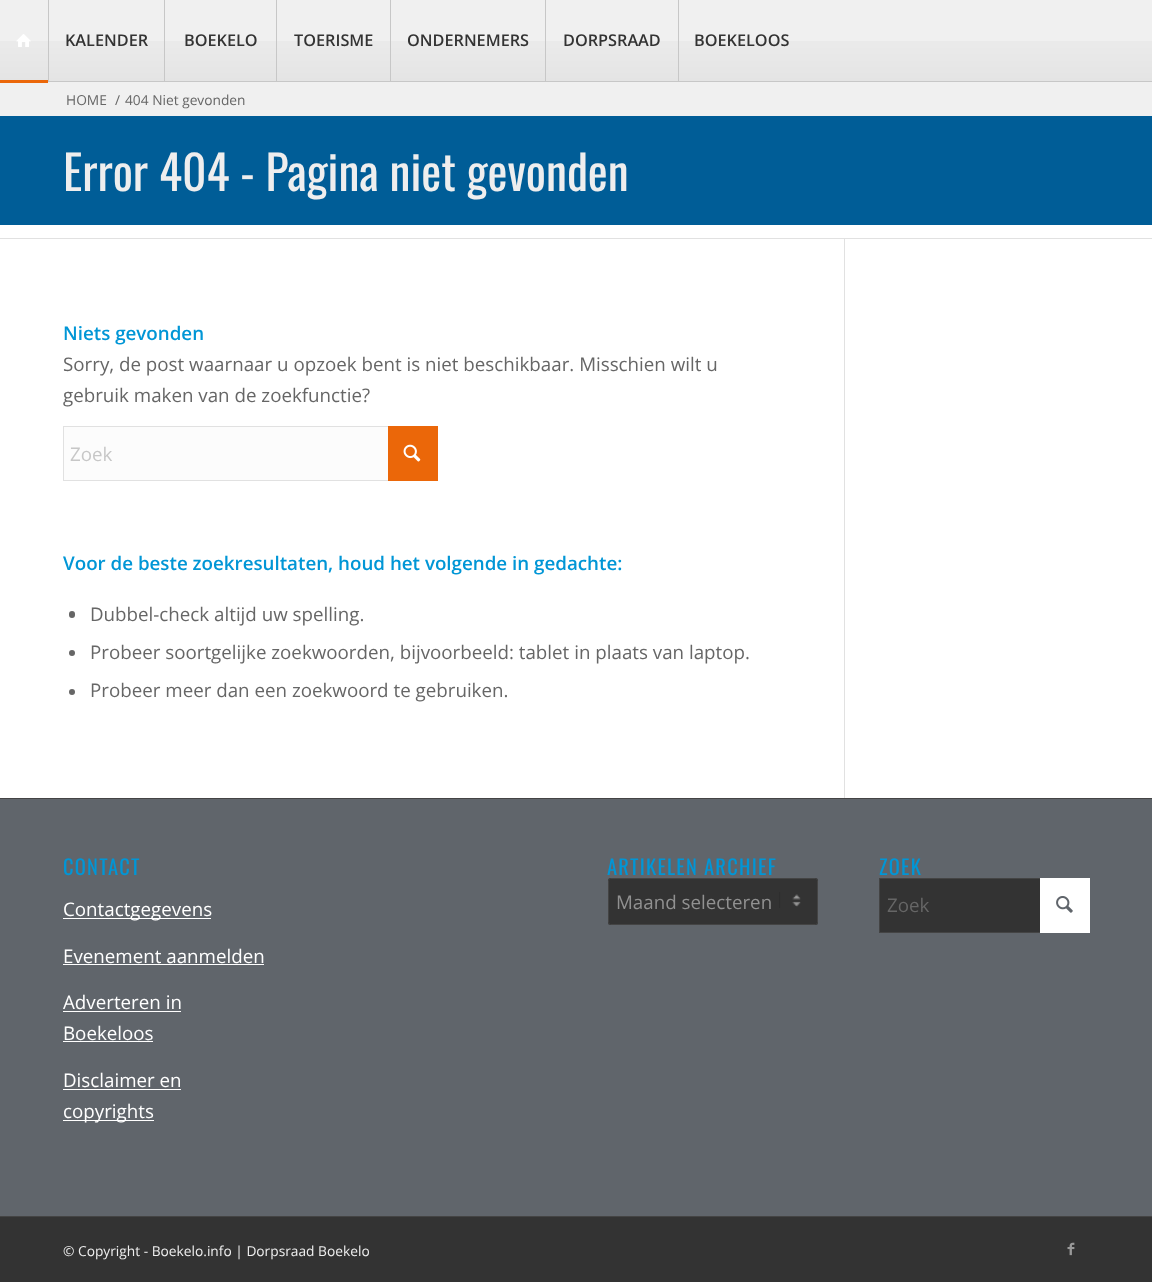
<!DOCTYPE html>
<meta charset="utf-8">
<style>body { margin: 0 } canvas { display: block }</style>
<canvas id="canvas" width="1152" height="1282"></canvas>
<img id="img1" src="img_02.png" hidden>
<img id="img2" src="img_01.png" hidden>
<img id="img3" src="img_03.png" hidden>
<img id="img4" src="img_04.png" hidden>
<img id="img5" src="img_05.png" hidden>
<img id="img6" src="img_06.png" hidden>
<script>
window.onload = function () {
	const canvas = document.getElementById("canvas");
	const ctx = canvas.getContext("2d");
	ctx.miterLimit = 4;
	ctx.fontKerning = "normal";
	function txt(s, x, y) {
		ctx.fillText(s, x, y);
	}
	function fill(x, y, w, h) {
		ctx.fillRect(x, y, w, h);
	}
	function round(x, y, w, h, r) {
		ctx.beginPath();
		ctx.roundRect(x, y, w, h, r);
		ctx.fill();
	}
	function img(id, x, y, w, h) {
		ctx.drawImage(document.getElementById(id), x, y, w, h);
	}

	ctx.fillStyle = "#FFFFFF";
	fill(0, 0, 1152, 1282);
	ctx.fillStyle = "#F0F0F0";
	fill(0, 0, 1152, 116);
	ctx.fillStyle = "#C7C7C7";
	fill(48, 81, 1104, 1);
	img("img1", 0, 41, 1152, 40);
	img("img2", 16, 34, 15, 13);
	ctx.fillStyle = "#EB6709";
	fill(0, 80, 48, 3);
	ctx.fillStyle = "#C7C7C7";
	fill(48, 0, 1, 81);
	fill(164, 0, 1, 81);
	fill(276, 0, 1, 81);
	fill(390, 0, 1, 81);
	fill(545, 0, 1, 81);
	fill(678, 0, 1, 81);
	ctx.fillStyle = "#005D97";
	fill(0, 116, 1152, 109);
	ctx.fillStyle = "#E1E1E1";
	fill(0, 238, 1152, 1);
	fill(844, 239, 1, 559);
	ctx.fillStyle = "#FCFCFC";
	fill(64, 427, 324, 53);
	ctx.strokeStyle = "#E1E1E1";
	ctx.strokeRect(63.5, 426.5, 374, 54);
	ctx.fillStyle = "#EB6709";
	fill(388, 426, 50, 55);
	img("img3", 403, 444, 18, 18);
	ctx.fillStyle = "#666666";
	round(69, 611, 6, 7, 3);
	ctx.beginPath();
	ctx.arc(72, 653, 3, 0, Math.PI * 2);
	ctx.fill();
	ctx.beginPath();
	ctx.arc(72, 692, 3, 0, Math.PI * 2);
	ctx.fill();
	ctx.fillStyle = "#60656B";
	fill(0, 799, 1152, 417);
	ctx.fillStyle = "#444444";
	fill(0, 798, 1152, 1);
	ctx.fillStyle = "#FFFFFF";
	fill(63, 918, 148, 1);
	fill(63, 964, 201, 1);
	fill(63, 1011, 118, 1);
	fill(63, 1041, 90, 1);
	fill(63, 1089, 118, 1);
	fill(63, 1120, 91, 1);
	ctx.fillStyle = "#333333";
	round(608, 878, 210, 47, 2.5);
	img("img4", 779, 892, 22, 16);
	ctx.beginPath();
	ctx.roundRect(608.5, 878.5, 209, 46, 2);
	ctx.strokeStyle = "#444444";
	ctx.stroke();
	fill(880, 879, 160, 53);
	ctx.strokeRect(879.5, 878.5, 210, 54);
	ctx.fillStyle = "#FFFFFF";
	fill(1040, 878, 50, 55);
	img("img5", 1056, 896, 17, 17);
	ctx.fillStyle = "#333333";
	fill(0, 1217, 1152, 65);
	ctx.fillStyle = "#444444";
	fill(0, 1216, 1152, 1);
	img("img6", 1067, 1242, 8, 14);
	ctx.font = "600 16.25px Open Sans";
	ctx.fillStyle = "#333333";
	txt("KALENDER", 65, 46);
	txt("BOEKELO", 184, 46);
	txt("TOERISME", 294, 46);
	txt("ONDERNEMERS", 407, 46);
	txt("DORPSRAAD", 563, 46);
	txt("BOEKELOOS", 694, 46);
	ctx.font = "13.75px Open Sans";
	ctx.fillStyle = "#666666";
	txt("HOME", 66, 105);
	txt("/", 115, 105);
	txt("404 Niet gevonden", 125, 105);
	ctx.font = "47.5px Oswald";
	ctx.fillStyle = "#EEEEEE";
	txt("Error 404 - Pagina niet gevonden", 63, 191);
	ctx.font = "600 18.75px Open Sans";
	ctx.fillStyle = "#0196D6";
	txt("Niets gevonden", 63, 340);
	ctx.font = "18.75px Open Sans";
	ctx.fillStyle = "#666666";
	txt("Sorry, de post waarnaar u opzoek bent is niet beschikbaar. Misschien wilt u", 63, 371);
	txt("gebruik maken van de zoekfunctie?", 63, 402);
	ctx.fillStyle = "#C7C7C7";
	txt("Zoek", 70, 461);
	ctx.font = "600 18.75px Open Sans";
	ctx.fillStyle = "#0196D6";
	txt("Voor de beste zoekresultaten, houd het volgende in gedachte:", 63, 570);
	ctx.font = "18.75px Open Sans";
	ctx.fillStyle = "#666666";
	txt("Dubbel-check altijd uw spelling.", 90, 621);
	txt("Probeer soortgelijke zoekwoorden, bijvoorbeeld: tablet in plaats van laptop.", 90, 659);
	txt("Probeer meer dan een zoekwoord te gebruiken.", 90, 697);
	ctx.letterSpacing = "1.25px";
	ctx.font = "20.5px Oswald";
	ctx.fillStyle = "#0196D6";
	txt("CONTACT", 63, 875);
	ctx.letterSpacing = "0px";
	ctx.font = "18.75px Open Sans";
	ctx.fillStyle = "#FFFFFF";
	txt("Contactgegevens", 63, 916);
	txt("Evenement aanmelden", 63, 963);
	txt("Adverteren in", 63, 1009);
	txt("Boekeloos", 63, 1040);
	txt("Disclaimer en", 63, 1087);
	txt("copyrights", 63, 1118);
	ctx.letterSpacing = "1.25px";
	ctx.font = "20.5px Oswald";
	ctx.fillStyle = "#0196D6";
	txt("ARTIKELEN ARCHIEF", 607, 875);
	ctx.letterSpacing = "0px";
	ctx.font = "18.75px Open Sans";
	ctx.fillStyle = "#919191";
	txt("Maand selecteren", 616, 909);
	ctx.letterSpacing = "1.25px";
	ctx.font = "20.5px Oswald";
	ctx.fillStyle = "#0196D6";
	txt("ZOEK", 879, 875);
	ctx.letterSpacing = "0px";
	ctx.font = "18.75px Open Sans";
	ctx.fillStyle = "#666666";
	txt("Zoek", 887, 912);
	ctx.font = "13.75px Open Sans";
	ctx.fillStyle = "#EEEEEE";
	txt("© Copyright - Boekelo.info | Dorpsraad Boekelo", 63, 1256);
};
</script>
